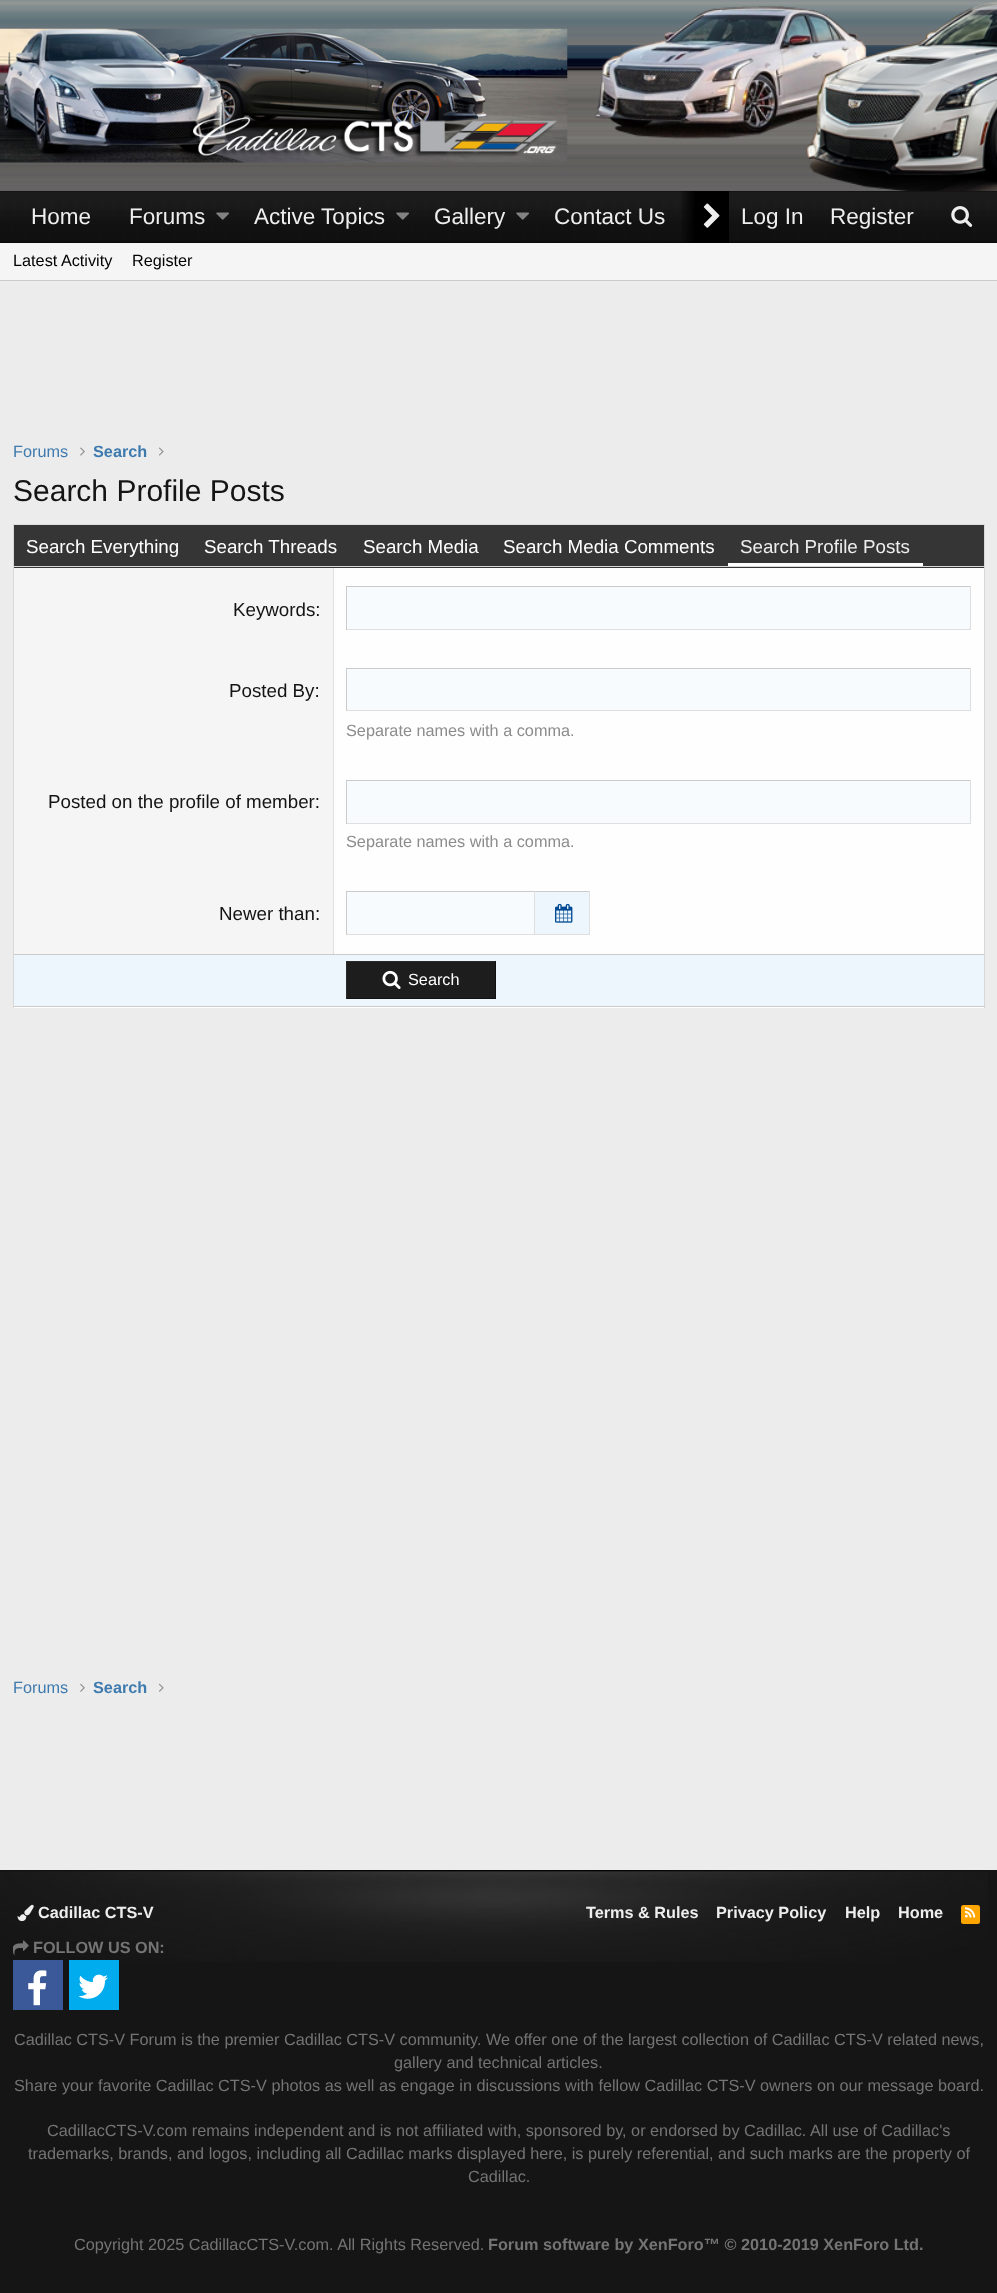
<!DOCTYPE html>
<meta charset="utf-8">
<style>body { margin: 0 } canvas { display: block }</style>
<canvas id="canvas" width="997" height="2293"></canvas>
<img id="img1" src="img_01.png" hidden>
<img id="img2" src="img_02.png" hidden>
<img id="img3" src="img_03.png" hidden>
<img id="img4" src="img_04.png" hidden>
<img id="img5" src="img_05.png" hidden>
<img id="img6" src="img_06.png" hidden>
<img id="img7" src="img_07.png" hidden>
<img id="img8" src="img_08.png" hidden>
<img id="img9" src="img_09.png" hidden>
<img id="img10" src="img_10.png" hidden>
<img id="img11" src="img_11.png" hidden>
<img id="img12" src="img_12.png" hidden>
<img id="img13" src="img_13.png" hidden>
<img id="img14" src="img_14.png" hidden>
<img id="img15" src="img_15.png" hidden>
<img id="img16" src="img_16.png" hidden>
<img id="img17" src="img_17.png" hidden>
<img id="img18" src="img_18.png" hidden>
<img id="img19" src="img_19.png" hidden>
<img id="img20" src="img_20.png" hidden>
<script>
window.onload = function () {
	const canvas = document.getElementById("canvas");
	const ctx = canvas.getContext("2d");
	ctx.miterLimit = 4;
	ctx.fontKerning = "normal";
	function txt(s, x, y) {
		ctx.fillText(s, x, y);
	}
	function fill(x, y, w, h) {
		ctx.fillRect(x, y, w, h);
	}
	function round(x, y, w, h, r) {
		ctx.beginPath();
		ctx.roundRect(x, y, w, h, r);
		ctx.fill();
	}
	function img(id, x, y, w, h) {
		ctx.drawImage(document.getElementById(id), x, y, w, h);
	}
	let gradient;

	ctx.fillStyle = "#ECECEC";
	fill(0, 0, 997, 2293);
	img("img1", 0, 0, 997, 191);
	img("img2", 0, 28, 568, 135);
	img("img3", 567, 1, 430, 190);
	ctx.fillStyle = "#000000";
	fill(0, 191, 997, 52);
	img("img4", 0, 191, 997, 52);
	img("img5", 216, 212, 13, 8);
	img("img6", 396, 212, 13, 8);
	img("img5", 516, 212, 13, 8);
	gradient = ctx.createLinearGradient(679, 217, 729, 217);
	gradient.addColorStop(0, "rgba(0, 0, 0, 0)");
	gradient.addColorStop(0.33, "#000000");
	ctx.fillStyle = gradient;
	fill(681, 191, 48, 52);
	img("img7", 703, 203, 17, 25);
	img("img8", 951, 206, 22, 21);
	ctx.fillStyle = "#F5F5F5";
	fill(0, 243, 997, 37);
	ctx.fillStyle = "#CBCBCB";
	fill(0, 280, 997, 1);
	img("img9", 80, 447, 5, 9);
	img("img10", 159, 447, 5, 9);
	ctx.fillStyle = "#FEFEFE";
	fill(14, 568, 970, 440);
	ctx.fillStyle = "#DFDFDF";
	fill(13, 524, 972, 1);
	ctx.fillStyle = "#D8D8D8";
	fill(984, 524, 1, 484);
	ctx.fillStyle = "#CBCBCB";
	fill(13, 1006, 972, 1);
	ctx.fillStyle = "#D8D8D8";
	fill(13, 524, 1, 484);
	ctx.fillStyle = "#353535";
	fill(14, 525, 970, 43);
	ctx.fillStyle = "#D8D8D8";
	fill(14, 566, 970, 1);
	ctx.fillStyle = "#FFFFFF";
	fill(728, 563, 195, 3);
	ctx.fillStyle = "#F5F5F5";
	fill(14, 568, 319, 386);
	ctx.fillStyle = "#DFDFDF";
	fill(333, 568, 1, 386);
	ctx.fillStyle = "#F7FBFE";
	fill(347, 587, 623, 42);
	ctx.fillStyle = "#CBCBCB";
	fill(346, 586, 625, 1);
	ctx.fillStyle = "#DFDFDF";
	fill(970, 586, 1, 44);
	fill(346, 629, 625, 1);
	ctx.fillStyle = "#CBCBCB";
	fill(346, 586, 1, 44);
	ctx.fillStyle = "#F7FBFE";
	fill(347, 669, 623, 41);
	ctx.fillStyle = "#CBCBCB";
	fill(346, 668, 625, 1);
	ctx.fillStyle = "#DFDFDF";
	fill(970, 668, 1, 43);
	fill(346, 710, 625, 1);
	ctx.fillStyle = "#CBCBCB";
	fill(346, 668, 1, 43);
	ctx.fillStyle = "#F7FBFE";
	fill(347, 781, 623, 42);
	ctx.fillStyle = "#CBCBCB";
	fill(346, 780, 625, 1);
	ctx.fillStyle = "#DFDFDF";
	fill(970, 780, 1, 44);
	fill(346, 823, 625, 1);
	ctx.fillStyle = "#CBCBCB";
	fill(346, 780, 1, 44);
	ctx.fillStyle = "#F7FBFE";
	fill(347, 892, 187, 42);
	ctx.fillStyle = "#CBCBCB";
	fill(346, 891, 244, 1);
	ctx.fillStyle = "#DFDFDF";
	fill(346, 934, 188, 1);
	ctx.fillStyle = "#CBCBCB";
	fill(346, 891, 1, 44);
	ctx.fillStyle = "#EDF6FD";
	fill(535, 892, 54, 42);
	ctx.fillStyle = "#DFDFDF";
	fill(589, 891, 1, 44);
	fill(534, 934, 56, 1);
	fill(534, 891, 1, 44);
	img("img11", 555, 903, 18, 20);
	ctx.fillStyle = "#EDF6FD";
	fill(14, 955, 970, 51);
	ctx.fillStyle = "#CBCBCB";
	fill(14, 954, 970, 1);
	ctx.fillStyle = "#1D1D1D";
	fill(347, 962, 148, 36);
	ctx.fillStyle = "#2A2A2A";
	fill(346, 961, 150, 1);
	ctx.fillStyle = "#101010";
	fill(495, 961, 1, 38);
	fill(346, 998, 150, 1);
	ctx.fillStyle = "#2A2A2A";
	fill(346, 961, 1, 38);
	img("img12", 382, 970, 19, 19);
	img("img13", 80, 1683, 5, 9);
	img("img14", 158, 1683, 6, 9);
	ctx.fillStyle = "#151515";
	fill(0, 1870, 997, 423);
	img("img15", 0, 1870, 988, 92);
	img("img16", 17, 1904, 17, 18);
	ctx.fillStyle = "#FFA500";
	round(961, 1905, 19, 19, 2.5);
	img("img17", 965, 1907, 11, 11);
	img("img18", 13, 1940, 16, 15);
	ctx.fillStyle = "#3B5998";
	fill(13, 1960, 50, 50);
	img("img19", 28, 1970, 19, 36);
	ctx.fillStyle = "#00ACED";
	fill(69, 1960, 50, 50);
	img("img20", 78, 1974, 30, 25);
	ctx.font = "22.5px Liberation Sans";
	ctx.fillStyle = "#EEEEEE";
	txt("Home", 31, 224);
	txt("Forums", 129, 224);
	txt("Active Topics", 254, 224);
	txt("Gallery", 434, 224);
	txt("Contact Us", 554, 224);
	txt("Log In", 741, 224);
	txt("Register", 830, 224);
	ctx.font = "16.25px Liberation Sans";
	ctx.fillStyle = "#000000";
	txt("Latest Activity", 13, 266);
	txt("Register", 132, 266);
	ctx.fillStyle = "#3F7BAE";
	txt("Forums", 13, 457);
	ctx.font = "bold 16.25px Liberation Sans";
	txt("Search", 93, 457);
	ctx.font = "30px Liberation Sans";
	ctx.fillStyle = "#141414";
	txt("Search Profile Posts", 13, 501);
	ctx.font = "18.75px Liberation Sans";
	ctx.fillStyle = "#FFFFFF";
	txt("Search Everything", 26, 553);
	txt("Search Threads", 204, 553);
	txt("Search Media", 363, 553);
	txt("Search Media Comments", 503, 553);
	ctx.fillStyle = "#EEEEEE";
	txt("Search Profile Posts", 740, 553);
	ctx.fillStyle = "#141414";
	txt("Keywords:", 233, 616);
	txt("Posted By:", 229, 697);
	ctx.font = "16.25px Liberation Sans";
	ctx.fillStyle = "#8C8C8C";
	txt("Separate names with a comma.", 346, 736);
	ctx.font = "18.75px Liberation Sans";
	ctx.fillStyle = "#141414";
	txt("Posted on the profile of member:", 48, 808);
	ctx.font = "16.25px Liberation Sans";
	ctx.fillStyle = "#8C8C8C";
	txt("Separate names with a comma.", 346, 847);
	ctx.font = "18.75px Liberation Sans";
	ctx.fillStyle = "#141414";
	txt("Newer than:", 219, 920);
	ctx.font = "16.25px Liberation Sans";
	ctx.fillStyle = "#FFFFFF";
	txt("Search", 408, 985);
	ctx.fillStyle = "#3F7BAE";
	txt("Forums", 13, 1693);
	ctx.font = "bold 16.25px Liberation Sans";
	txt("Search", 93, 1693);
	ctx.fillStyle = "#EEEEEE";
	txt("Cadillac CTS-V", 38, 1918);
	txt("Terms & Rules", 586, 1918);
	txt("Privacy Policy", 716, 1918);
	txt("Help", 845, 1918);
	txt("Home", 898, 1918);
	ctx.fillStyle = "#747474";
	txt("FOLLOW US ON:", 33, 1953);
	ctx.font = "16.25px Liberation Sans";
	txt("Cadillac CTS-V Forum is the premier Cadillac CTS-V community. We offer one of the largest collection of Cadillac CTS-V related news,", 14, 2045);
	txt("gallery and technical articles.", 394, 2068);
	txt("Share your favorite Cadillac CTS-V photos as well as engage in discussions with fellow Cadillac CTS-V owners on our message board.", 14, 2091);
	txt("CadillacCTS-V.com remains independent and is not affiliated with, sponsored by, or endorsed by Cadillac. All use of Cadillac's", 47, 2136);
	txt("trademarks, brands, and logos, including all Cadillac marks displayed here, is purely referential, and such marks are the property of", 28, 2159);
	txt("Cadillac.", 468, 2182);
	txt("Copyright 2025 CadillacCTS-V.com. All Rights Reserved.", 74, 2250);
	ctx.font = "bold 16.25px Liberation Sans";
	txt("Forum software by XenForo™ © 2010-2019 XenForo Ltd.", 488, 2250);
};
</script>
